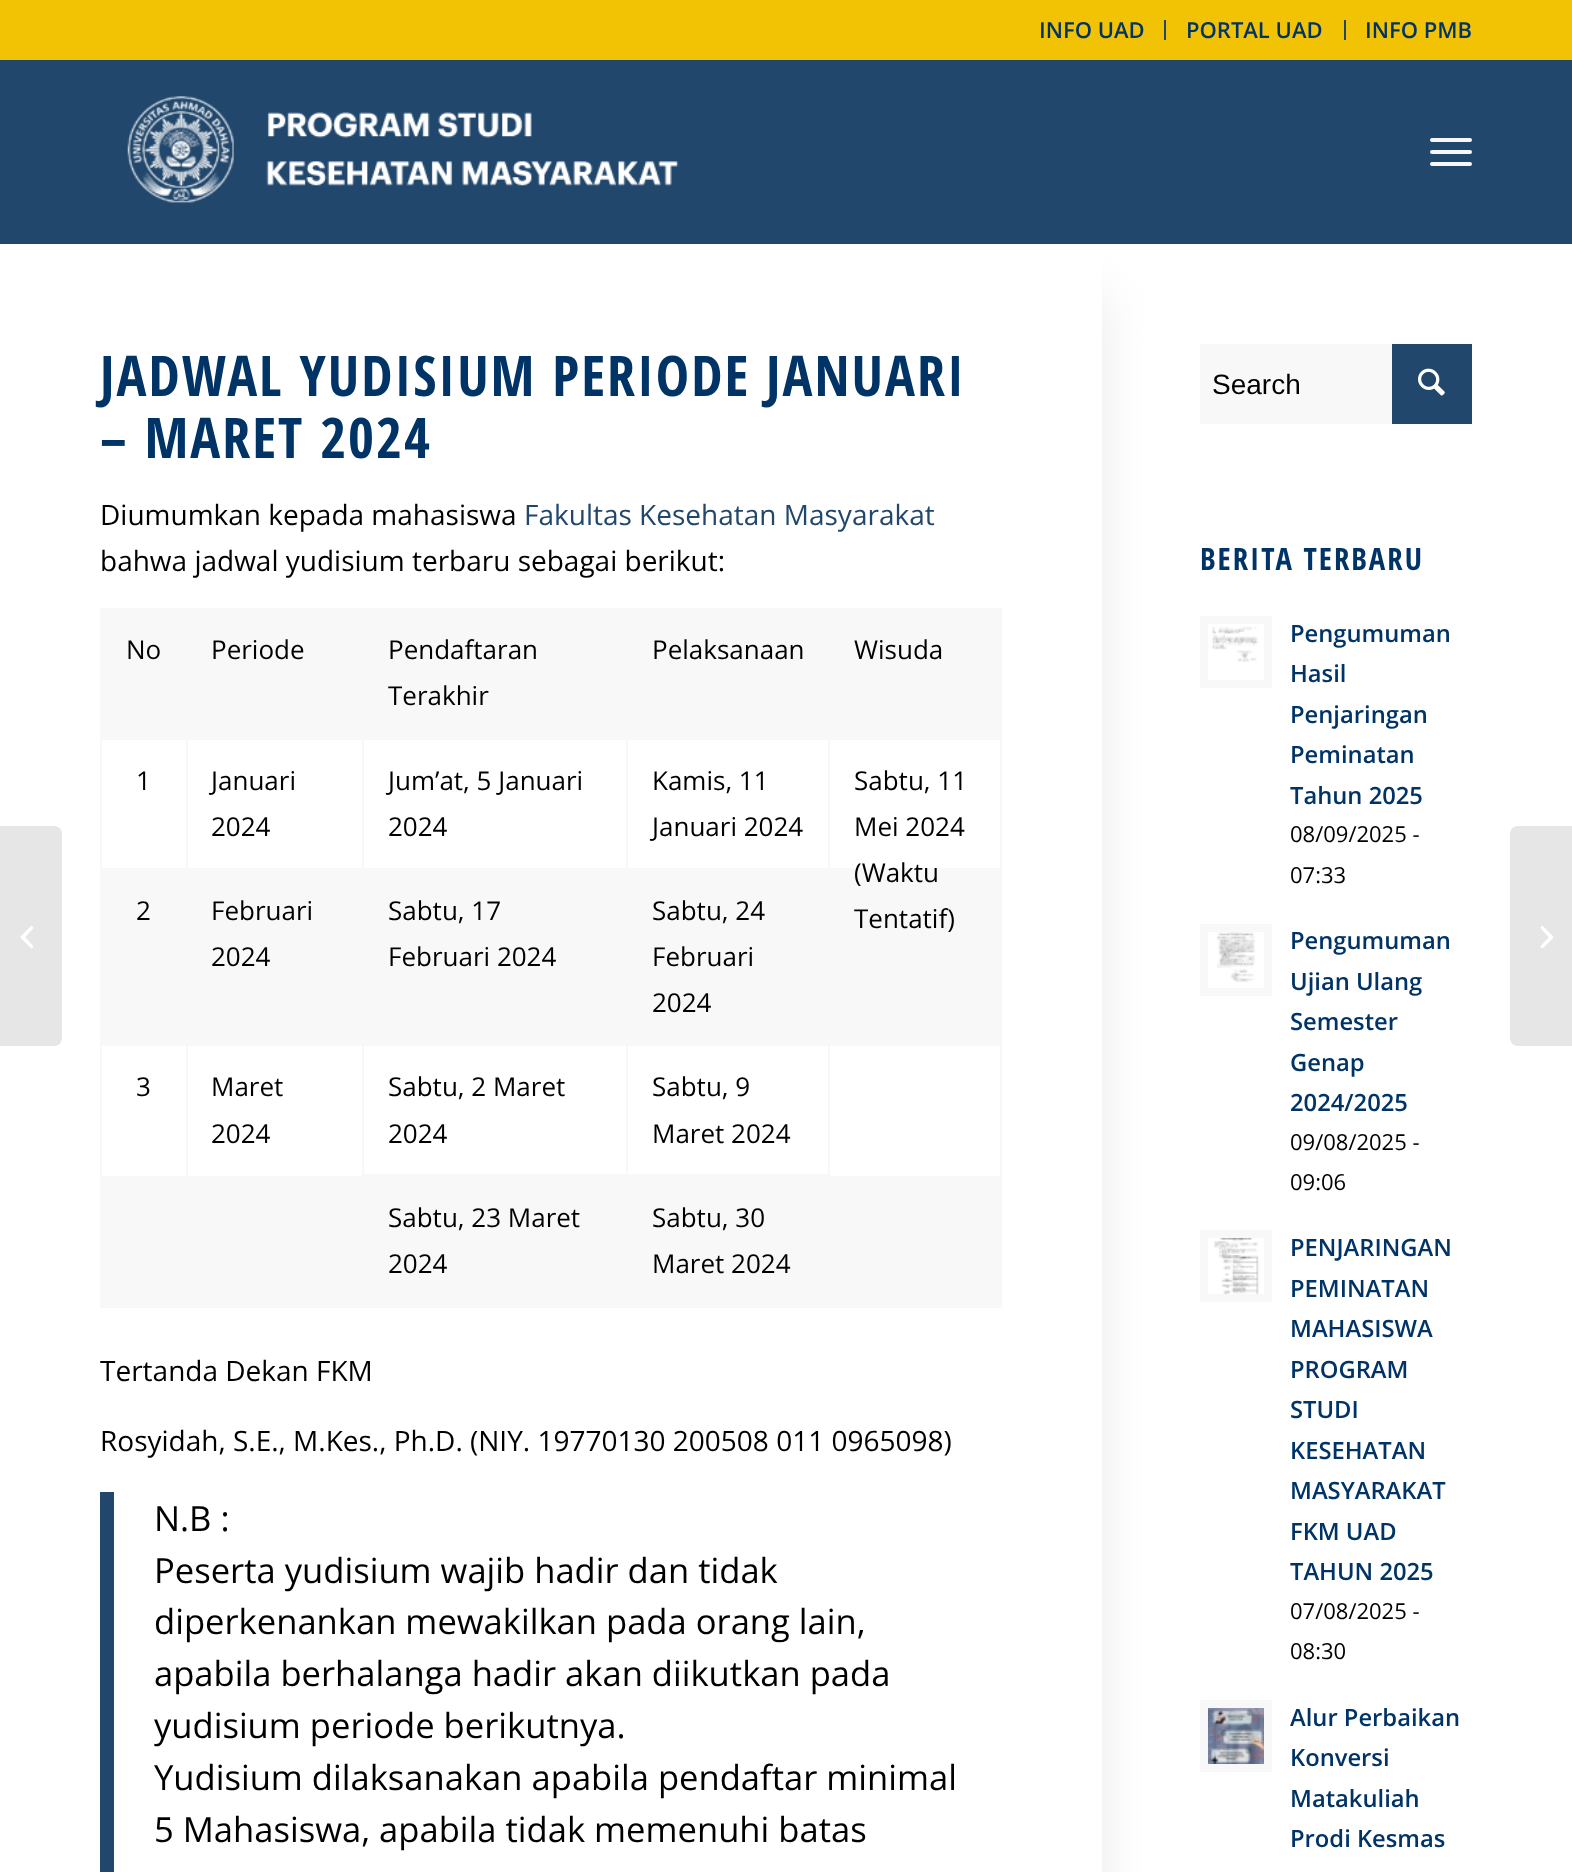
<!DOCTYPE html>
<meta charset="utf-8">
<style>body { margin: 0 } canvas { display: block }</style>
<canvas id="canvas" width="1572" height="1872"></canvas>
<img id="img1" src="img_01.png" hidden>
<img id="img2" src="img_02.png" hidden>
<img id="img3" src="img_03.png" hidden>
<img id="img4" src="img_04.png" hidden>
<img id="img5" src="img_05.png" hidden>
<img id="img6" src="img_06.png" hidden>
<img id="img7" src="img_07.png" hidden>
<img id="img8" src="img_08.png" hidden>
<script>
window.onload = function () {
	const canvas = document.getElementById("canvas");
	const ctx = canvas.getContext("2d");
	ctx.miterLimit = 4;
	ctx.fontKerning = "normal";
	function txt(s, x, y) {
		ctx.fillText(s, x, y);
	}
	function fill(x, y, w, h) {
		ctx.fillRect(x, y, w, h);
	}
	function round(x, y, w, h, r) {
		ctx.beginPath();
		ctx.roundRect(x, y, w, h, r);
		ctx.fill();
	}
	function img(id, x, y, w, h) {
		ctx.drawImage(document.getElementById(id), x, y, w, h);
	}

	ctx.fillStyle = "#FFFFFF";
	fill(0, 0, 1572, 1872);
	ctx.fillStyle = "#F2C204";
	fill(0, 0, 1572, 60);
	ctx.fillStyle = "#21476C";
	fill(1164, 20, 2, 20);
	fill(1344, 20, 2, 20);
	ctx.save();
	ctx.beginPath();
	ctx.rect(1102, 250, 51, 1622);
	ctx.clip();
	ctx.fillStyle = "#E9E9EB";
	ctx.filter = "blur(25px)";
	ctx.beginPath();
	ctx.rect(200, 294, 902, 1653);
	ctx.fill();
	ctx.filter = "none";
	ctx.restore();
	fill(0, 60, 1572, 184);
	img("img1", 127, 96, 552, 107);
	ctx.fillStyle = "#F7F7F7";
	round(1430, 150, 42, 4, 2);
	round(1430, 138, 42, 4, 2);
	round(1430, 162, 42, 4, 2);
	ctx.fillStyle = "#E6E6E6";
	ctx.beginPath();
	ctx.roundRect(0, 826, 62, 220, [0, 8, 8, 0]);
	ctx.fill();
	img("img2", 20, 926, 14, 23);
	ctx.fillStyle = "#F8F8F8";
	fill(100, 608, 902, 700);
	ctx.fillStyle = "#FFFFFF";
	fill(102, 740, 898, 128);
	ctx.fillStyle = "#F8F8F8";
	fill(186, 738, 2, 132);
	fill(362, 738, 2, 132);
	fill(626, 738, 2, 132);
	fill(828, 738, 2, 132);
	ctx.fillStyle = "#FFFFFF";
	fill(102, 1046, 898, 130);
	ctx.fillStyle = "#F8F8F8";
	fill(186, 1044, 2, 132);
	fill(362, 1044, 2, 130);
	fill(828, 1044, 2, 132);
	fill(626, 1174, 204, 2);
	fill(626, 1044, 2, 132);
	fill(362, 1174, 266, 2);
	ctx.fillStyle = "#21476C";
	fill(100, 1492, 14, 380);
	ctx.fillStyle = "#F8F8F8";
	fill(1200, 344, 192, 80);
	ctx.fillStyle = "#21476C";
	fill(1392, 344, 80, 80);
	img("img3", 1418, 368, 27, 28);
	ctx.fillStyle = "#F8F8F8";
	fill(1200, 616, 72, 72);
	img("img4", 1208, 624, 56, 56);
	fill(1200, 924, 72, 72);
	img("img5", 1208, 932, 56, 56);
	fill(1200, 1230, 72, 72);
	img("img6", 1208, 1238, 56, 56);
	fill(1200, 1700, 72, 72);
	img("img7", 1208, 1708, 56, 56);
	ctx.fillStyle = "#E6E6E6";
	ctx.beginPath();
	ctx.roundRect(1510, 826, 62, 220, [8, 0, 0, 8]);
	ctx.fill();
	img("img8", 1540, 926, 14, 23);
	ctx.font = "600 22px Open Sans";
	ctx.fillStyle = "#003366";
	txt("INFO UAD", 1039, 38);
	txt("PORTAL UAD", 1186, 38);
	txt("INFO PMB", 1365, 38);
	ctx.letterSpacing = "2px";
	ctx.font = "bold 56px Open Sans Condensed";
	txt("JADWAL YUDISIUM PERIODE JANUARI", 100, 396);
	txt("– MARET 2024", 100, 458);
	ctx.letterSpacing = "0px";
	ctx.font = "28px Open Sans";
	ctx.fillStyle = "#000000";
	txt("Diumumkan kepada mahasiswa", 100, 525);
	ctx.fillStyle = "#21476C";
	txt("Fakultas Kesehatan Masyarakat", 524, 525);
	ctx.fillStyle = "#000000";
	txt("bahwa jadwal yudisium terbaru sebagai berikut:", 100, 571);
	ctx.font = "26px Open Sans";
	txt("No", 126, 659);
	txt("Periode", 211, 659);
	txt("Pendaftaran", 388, 659);
	txt("Terakhir", 388, 705);
	txt("Pelaksanaan", 652, 659);
	txt("Wisuda", 854, 659);
	txt("1", 136, 790);
	txt("Januari", 211, 790);
	txt("2024", 211, 836);
	txt("Jum’at, 5 Januari", 388, 790);
	txt("2024", 388, 836);
	txt("Kamis, 11", 652, 790);
	txt("Januari 2024", 652, 836);
	txt("Sabtu, 11", 854, 790);
	txt("Mei 2024", 854, 836);
	txt("(Waktu", 854, 882);
	txt("Tentatif)", 854, 928);
	txt("2", 136, 920);
	txt("Februari", 211, 920);
	txt("2024", 211, 966);
	txt("Sabtu, 17", 388, 920);
	txt("Februari 2024", 388, 966);
	txt("Sabtu, 24", 652, 920);
	txt("Februari", 652, 966);
	txt("2024", 652, 1012);
	txt("3", 136, 1096);
	txt("Maret", 211, 1096);
	txt("2024", 211, 1143);
	txt("Sabtu, 2 Maret", 388, 1096);
	txt("2024", 388, 1143);
	txt("Sabtu, 9", 652, 1096);
	txt("Maret 2024", 652, 1143);
	txt("Sabtu, 23 Maret", 388, 1227);
	txt("2024", 388, 1273);
	txt("Sabtu, 30", 652, 1227);
	txt("Maret 2024", 652, 1273);
	ctx.font = "28px Open Sans";
	txt("Tertanda Dekan FKM", 100, 1381);
	txt("Rosyidah, S.E., M.Kes., Ph.D. (NIY. 19770130 200508 011 0965098)", 100, 1451);
	ctx.font = "34.6px Open Sans";
	txt("N.B :", 154, 1531);
	txt("Peserta yudisium wajib hadir dan tidak", 154, 1583);
	txt("diperkenankan mewakilkan pada orang lain,", 154, 1634);
	txt("apabila berhalanga hadir akan diikutkan pada", 154, 1686);
	txt("yudisium periode berikutnya.", 154, 1738);
	txt("Yudisium dilaksanakan apabila pendaftar minimal", 154, 1790);
	txt("5 Mahasiswa, apabila tidak memenuhi batas", 154, 1842);
	ctx.font = "28px Liberation Sans";
	txt("Search", 1212, 394);
	ctx.letterSpacing = "2px";
	ctx.font = "bold 30.75px Open Sans Condensed";
	ctx.fillStyle = "#003366";
	txt("BERITA TERBARU", 1200, 570);
	ctx.letterSpacing = "0px";
	ctx.font = "600 23.75px Open Sans";
	txt("Pengumuman", 1290, 642);
	txt("Hasil", 1290, 682);
	txt("Penjaringan", 1290, 723);
	txt("Peminatan", 1290, 763);
	txt("Tahun 2025", 1290, 804);
	ctx.font = "22px Open Sans";
	ctx.fillStyle = "#000000";
	txt("08/09/2025 -", 1290, 842);
	txt("07:33", 1290, 883);
	ctx.font = "600 23.75px Open Sans";
	ctx.fillStyle = "#003366";
	txt("Pengumuman", 1290, 949);
	txt("Ujian Ulang", 1290, 990);
	txt("Semester", 1290, 1030);
	txt("Genap", 1290, 1071);
	txt("2024/2025", 1290, 1111);
	ctx.font = "22px Open Sans";
	ctx.fillStyle = "#000000";
	txt("09/08/2025 -", 1290, 1150);
	txt("09:06", 1290, 1190);
	ctx.font = "600 23.75px Open Sans";
	ctx.fillStyle = "#003366";
	txt("PENJARINGAN", 1290, 1256);
	txt("PEMINATAN", 1290, 1297);
	txt("MAHASISWA", 1290, 1337);
	txt("PROGRAM", 1290, 1378);
	txt("STUDI", 1290, 1418);
	txt("KESEHATAN", 1290, 1459);
	txt("MASYARAKAT", 1290, 1499);
	txt("FKM UAD", 1290, 1540);
	txt("TAHUN 2025", 1290, 1580);
	ctx.font = "22px Open Sans";
	ctx.fillStyle = "#000000";
	txt("07/08/2025 -", 1290, 1619);
	txt("08:30", 1290, 1659);
	ctx.font = "600 23.75px Open Sans";
	ctx.fillStyle = "#003366";
	txt("Alur Perbaikan", 1290, 1726);
	txt("Konversi", 1290, 1766);
	txt("Matakuliah", 1290, 1807);
	txt("Prodi Kesmas", 1290, 1847);
};
</script>
